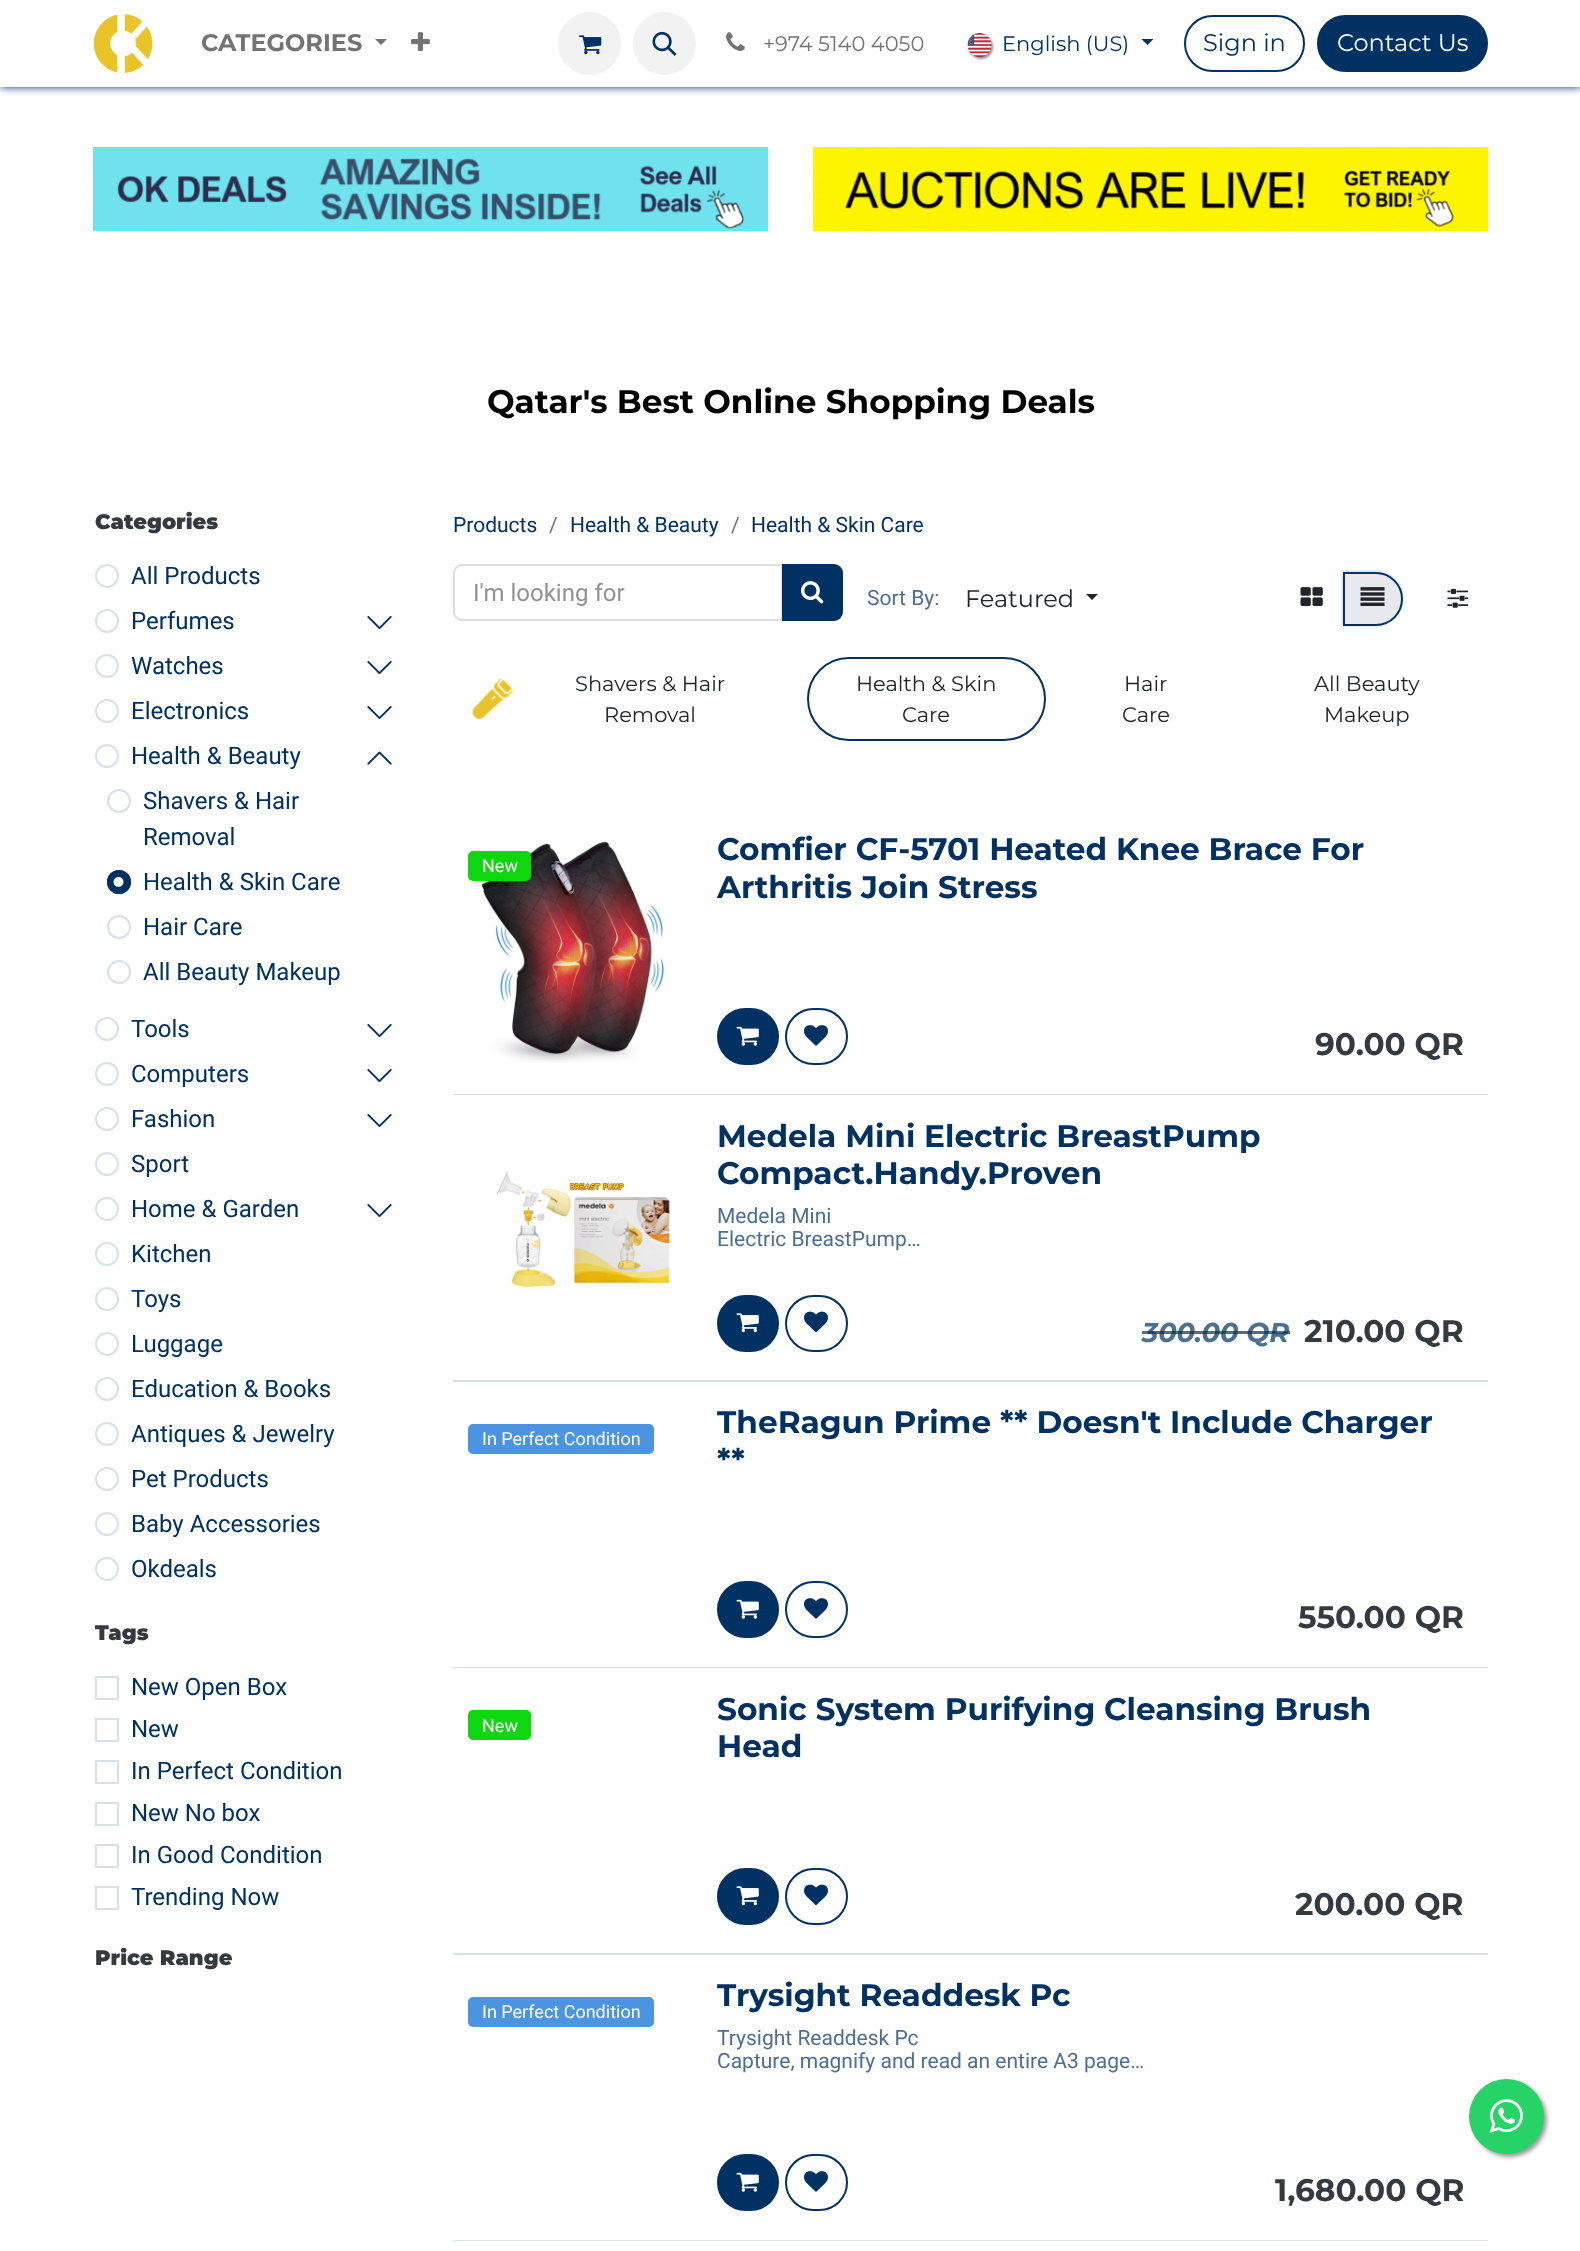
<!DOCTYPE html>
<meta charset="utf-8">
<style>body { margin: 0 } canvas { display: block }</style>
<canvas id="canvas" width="1580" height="2251"></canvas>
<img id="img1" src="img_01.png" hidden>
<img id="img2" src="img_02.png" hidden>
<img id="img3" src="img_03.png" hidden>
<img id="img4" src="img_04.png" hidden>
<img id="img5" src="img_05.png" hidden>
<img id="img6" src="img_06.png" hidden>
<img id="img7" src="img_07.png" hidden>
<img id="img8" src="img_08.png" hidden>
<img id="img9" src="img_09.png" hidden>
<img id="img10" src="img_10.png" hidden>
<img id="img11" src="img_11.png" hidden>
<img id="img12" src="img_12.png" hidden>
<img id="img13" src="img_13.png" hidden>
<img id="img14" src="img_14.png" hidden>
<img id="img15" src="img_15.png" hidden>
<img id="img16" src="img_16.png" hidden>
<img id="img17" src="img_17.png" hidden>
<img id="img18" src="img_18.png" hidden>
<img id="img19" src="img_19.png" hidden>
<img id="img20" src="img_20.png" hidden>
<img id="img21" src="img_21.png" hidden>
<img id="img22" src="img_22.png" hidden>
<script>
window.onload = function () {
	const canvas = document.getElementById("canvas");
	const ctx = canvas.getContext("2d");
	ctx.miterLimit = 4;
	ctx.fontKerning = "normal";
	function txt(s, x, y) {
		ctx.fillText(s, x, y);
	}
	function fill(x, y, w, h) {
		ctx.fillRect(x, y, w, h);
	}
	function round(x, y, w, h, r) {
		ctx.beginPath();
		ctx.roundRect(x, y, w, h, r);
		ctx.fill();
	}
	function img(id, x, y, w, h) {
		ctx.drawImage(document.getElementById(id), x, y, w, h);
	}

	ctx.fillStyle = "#FFFFFF";
	fill(0, 0, 1580, 2251);
	ctx.save();
	ctx.beginPath();
	ctx.rect(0, 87, 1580, 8);
	ctx.clip();
	ctx.fillStyle = "#003163";
	ctx.filter = "blur(4px)";
	ctx.beginPath();
	ctx.rect(0, 0, 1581, 87);
	ctx.fill();
	ctx.filter = "none";
	ctx.restore();
	img("img1", 93, 14, 60, 59);
	ctx.fillStyle = "#737373";
	ctx.beginPath();
	ctx.moveTo(375, 39);
	ctx.lineTo(387, 39);
	ctx.lineTo(381, 45);
	ctx.closePath();
	ctx.fill();
	img("img2", 411, 32, 19, 19);
	ctx.fillStyle = "#F2F2F2";
	ctx.beginPath();
	ctx.arc(589.5, 43.5, 31.5, 0, Math.PI * 2);
	ctx.fill();
	img("img3", 579, 35, 23, 20);
	ctx.beginPath();
	ctx.arc(664.5, 43.5, 31.5, 0, Math.PI * 2);
	ctx.fill();
	img("img4", 652, 31, 25, 25);
	img("img5", 726, 32, 19, 19);
	ctx.fillStyle = "rgba(0, 0, 0, 0.43)";
	ctx.filter = "blur(1px)";
	ctx.beginPath();
	ctx.roundRect(969, 35, 24, 24, 12);
	ctx.fill();
	ctx.filter = "none";
	img("img6", 967, 33, 25, 24);
	ctx.fillStyle = "#003163";
	ctx.beginPath();
	ctx.moveTo(1141.5, 39);
	ctx.lineTo(1153.5, 39);
	ctx.lineTo(1147.5, 45);
	ctx.closePath();
	ctx.fill();
	ctx.beginPath();
	ctx.roundRect(1185, 16, 119, 55, 27.5);
	ctx.strokeStyle = "#003163";
	ctx.lineWidth = 2;
	ctx.stroke();
	ctx.beginPath();
	ctx.roundRect(1318, 16, 169, 55, 27.5);
	ctx.fill();
	ctx.stroke();
	img("img7", 93, 147, 675, 84);
	img("img8", 813, 147, 675, 84);
	ctx.beginPath();
	ctx.arc(107, 576, 11, 0, Math.PI * 2);
	ctx.strokeStyle = "#D9E0E8";
	ctx.stroke();
	ctx.beginPath();
	ctx.arc(107, 621, 11, 0, Math.PI * 2);
	ctx.stroke();
	img("img9", 367, 616, 25, 13);
	ctx.beginPath();
	ctx.arc(107, 666, 11, 0, Math.PI * 2);
	ctx.stroke();
	img("img9", 367, 661, 25, 13);
	ctx.beginPath();
	ctx.arc(107, 711, 11, 0, Math.PI * 2);
	ctx.stroke();
	img("img9", 367, 706, 25, 13);
	ctx.beginPath();
	ctx.arc(107, 756, 11, 0, Math.PI * 2);
	ctx.stroke();
	img("img10", 367, 751, 25, 14);
	ctx.beginPath();
	ctx.arc(119, 801, 11, 0, Math.PI * 2);
	ctx.stroke();
	ctx.beginPath();
	ctx.arc(119, 882, 12, 0, Math.PI * 2);
	ctx.fill();
	ctx.fillStyle = "#FFFFFF";
	ctx.beginPath();
	ctx.arc(118.5, 882, 5, 0, Math.PI * 2);
	ctx.fill();
	ctx.beginPath();
	ctx.arc(119, 882, 11, 0, Math.PI * 2);
	ctx.strokeStyle = "#003163";
	ctx.stroke();
	ctx.beginPath();
	ctx.arc(119, 927, 11, 0, Math.PI * 2);
	ctx.strokeStyle = "#D9E0E8";
	ctx.stroke();
	ctx.beginPath();
	ctx.arc(119, 972, 11, 0, Math.PI * 2);
	ctx.stroke();
	ctx.beginPath();
	ctx.arc(107, 1029, 11, 0, Math.PI * 2);
	ctx.stroke();
	img("img9", 367, 1024, 25, 13);
	ctx.beginPath();
	ctx.arc(107, 1074, 11, 0, Math.PI * 2);
	ctx.stroke();
	img("img9", 367, 1069, 25, 13);
	ctx.beginPath();
	ctx.arc(107, 1119, 11, 0, Math.PI * 2);
	ctx.stroke();
	img("img9", 367, 1114, 25, 13);
	ctx.beginPath();
	ctx.arc(107, 1164, 11, 0, Math.PI * 2);
	ctx.stroke();
	ctx.beginPath();
	ctx.arc(107, 1209, 11, 0, Math.PI * 2);
	ctx.stroke();
	img("img9", 367, 1204, 25, 13);
	ctx.beginPath();
	ctx.arc(107, 1254, 11, 0, Math.PI * 2);
	ctx.stroke();
	ctx.beginPath();
	ctx.arc(107, 1299, 11, 0, Math.PI * 2);
	ctx.stroke();
	ctx.beginPath();
	ctx.arc(107, 1344, 11, 0, Math.PI * 2);
	ctx.stroke();
	ctx.beginPath();
	ctx.arc(107, 1389, 11, 0, Math.PI * 2);
	ctx.stroke();
	ctx.beginPath();
	ctx.arc(107, 1434, 11, 0, Math.PI * 2);
	ctx.stroke();
	ctx.beginPath();
	ctx.arc(107, 1479, 11, 0, Math.PI * 2);
	ctx.stroke();
	ctx.beginPath();
	ctx.arc(107, 1524, 11, 0, Math.PI * 2);
	ctx.stroke();
	ctx.beginPath();
	ctx.arc(107, 1569, 11, 0, Math.PI * 2);
	ctx.stroke();
	ctx.strokeRect(96, 1677, 22, 22);
	ctx.strokeRect(96, 1719, 22, 22);
	ctx.strokeRect(96, 1761, 22, 22);
	ctx.strokeRect(96, 1803, 22, 22);
	ctx.strokeRect(96, 1845, 22, 22);
	ctx.strokeRect(96, 1887, 22, 22);
	ctx.beginPath();
	ctx.roundRect(454, 565, 328, 55, [8, 0, 0, 8]);
	ctx.strokeStyle = "#DEDEDF";
	ctx.stroke();
	ctx.fillStyle = "#003163";
	ctx.beginPath();
	ctx.roundRect(783, 565, 59, 55, [0, 8, 8, 0]);
	ctx.fill();
	ctx.strokeStyle = "#003163";
	ctx.stroke();
	img("img11", 801, 581, 23, 23);
	ctx.fillStyle = "#212529";
	ctx.beginPath();
	ctx.moveTo(1086, 594);
	ctx.lineTo(1098, 594);
	ctx.lineTo(1092, 600);
	ctx.closePath();
	ctx.fill();
	img("img12", 1300, 587, 23, 19);
	ctx.fillStyle = "#E6EAEF";
	ctx.beginPath();
	ctx.roundRect(1341, 570, 63, 57, [0, 28.5, 28.5, 0]);
	ctx.fill();
	ctx.beginPath();
	ctx.roundRect(1344, 573, 58, 52, [0, 26, 26, 0]);
	ctx.stroke();
	img("img13", 1360, 587, 25, 19);
	img("img14", 1447, 588, 22, 20);
	img("img15", 471, 678, 43, 42);
	ctx.beginPath();
	ctx.roundRect(808, 658, 237, 82, 41);
	ctx.stroke();
	ctx.fillStyle = "#D9E0E8";
	fill(453, 1094, 1035, 1);
	img("img16", 482, 841, 183, 222);
	ctx.fillStyle = "#0FD70F";
	round(468, 851, 63, 30, 5);
	ctx.fillStyle = "#003163";
	ctx.beginPath();
	ctx.roundRect(718, 1009, 60, 55, 27.5);
	ctx.fill();
	ctx.stroke();
	img("img17", 736, 1026, 23, 20);
	ctx.beginPath();
	ctx.roundRect(786, 1009, 61, 55, 27.5);
	ctx.stroke();
	img("img18", 804, 1025, 24, 21);
	ctx.fillStyle = "#D9E0E8";
	fill(453, 1380, 1035, 2);
	img("img19", 496, 1171, 175, 119);
	ctx.fillStyle = "#003163";
	ctx.beginPath();
	ctx.roundRect(718, 1296, 60, 55, 27.5);
	ctx.fill();
	ctx.stroke();
	img("img20", 736, 1313, 23, 20);
	ctx.beginPath();
	ctx.roundRect(786, 1296, 61, 55, 27.5);
	ctx.stroke();
	img("img21", 804, 1311, 24, 22);
	ctx.fillStyle = "#D9E0E8";
	fill(453, 1667, 1035, 1);
	ctx.fillStyle = "#4B94E1";
	round(468, 1424, 186, 30, 5);
	ctx.fillStyle = "#003163";
	ctx.beginPath();
	ctx.roundRect(718, 1582, 60, 55, 27.5);
	ctx.fill();
	ctx.stroke();
	img("img17", 736, 1599, 23, 20);
	ctx.beginPath();
	ctx.roundRect(786, 1582, 61, 55, 27.5);
	ctx.stroke();
	img("img18", 804, 1598, 24, 21);
	ctx.fillStyle = "#D9E0E8";
	fill(453, 1953, 1035, 2);
	ctx.fillStyle = "#0FD70F";
	round(468, 1710, 63, 30, 5);
	ctx.fillStyle = "#003163";
	ctx.beginPath();
	ctx.roundRect(718, 1869, 60, 55, 27.5);
	ctx.fill();
	ctx.stroke();
	img("img20", 736, 1886, 23, 20);
	ctx.beginPath();
	ctx.roundRect(786, 1869, 61, 55, 27.5);
	ctx.stroke();
	img("img21", 804, 1884, 24, 22);
	ctx.fillStyle = "#D9E0E8";
	fill(453, 2240, 1035, 1);
	ctx.fillStyle = "#4B94E1";
	round(468, 1997, 186, 30, 5);
	ctx.fillStyle = "#003163";
	ctx.beginPath();
	ctx.roundRect(718, 2155, 60, 55, 27.5);
	ctx.fill();
	ctx.stroke();
	img("img17", 736, 2172, 23, 20);
	ctx.beginPath();
	ctx.roundRect(786, 2155, 61, 55, 27.5);
	ctx.stroke();
	img("img18", 804, 2171, 24, 21);
	ctx.fillStyle = "#999999";
	ctx.filter = "blur(2px)";
	ctx.beginPath();
	ctx.roundRect(1472, 2082, 75, 75, 37.5);
	ctx.fill();
	ctx.filter = "none";
	ctx.fillStyle = "#25D366";
	ctx.beginPath();
	ctx.arc(1506.5, 2116.5, 37.5, 0, Math.PI * 2);
	ctx.fill();
	img("img22", 1489, 2099, 34, 34);
	ctx.font = "bold 24px Montserrat";
	ctx.fillStyle = "#737373";
	txt("CATEGORIES", 201, 51);
	ctx.font = "21px Montserrat";
	txt("+974 5140 4050", 763, 51);
	ctx.fillStyle = "#003163";
	txt("English (US)", 1002, 51);
	ctx.font = "24px Montserrat";
	txt("Sign in", 1203, 51);
	ctx.fillStyle = "#FFFFFF";
	txt("Contact Us", 1337, 51);
	ctx.font = "bold 32.7px Montserrat";
	ctx.fillStyle = "#000000";
	txt("Qatar's Best Online Shopping Deals", 487, 413);
	ctx.font = "900 21px Montserrat";
	ctx.fillStyle = "#343A40";
	txt("Categories", 95, 529);
	ctx.font = "24px Roboto";
	ctx.fillStyle = "#003163";
	txt("All Products", 131, 584);
	txt("Perfumes", 131, 629);
	txt("Watches", 131, 674);
	txt("Electronics", 131, 719);
	txt("Health & Beauty", 131, 764);
	txt("Shavers & Hair", 143, 809);
	txt("Removal", 143, 845);
	txt("Health & Skin Care", 143, 890);
	txt("Hair Care", 143, 935);
	txt("All Beauty Makeup", 143, 980);
	txt("Tools", 131, 1037);
	txt("Computers", 131, 1082);
	txt("Fashion", 131, 1127);
	txt("Sport", 131, 1172);
	txt("Home & Garden", 131, 1217);
	txt("Kitchen", 131, 1262);
	txt("Toys", 131, 1307);
	txt("Luggage", 131, 1352);
	txt("Education & Books", 131, 1397);
	txt("Antiques & Jewelry", 131, 1442);
	txt("Pet Products", 131, 1487);
	txt("Baby Accessories", 131, 1532);
	txt("Okdeals", 131, 1577);
	ctx.font = "900 21px Montserrat";
	ctx.fillStyle = "#343A40";
	txt("Tags", 95, 1640);
	ctx.font = "24px Roboto";
	ctx.fillStyle = "#003163";
	txt("New Open Box", 131, 1695);
	txt("New", 131, 1737);
	txt("In Perfect Condition", 131, 1779);
	txt("New No box", 131, 1821);
	txt("In Good Condition", 131, 1863);
	txt("Trending Now", 131, 1905);
	ctx.font = "900 21px Montserrat";
	ctx.fillStyle = "#343A40";
	txt("Price Range", 95, 1965);
	ctx.font = "21px Roboto";
	ctx.fillStyle = "#003163";
	txt("Products", 453, 532);
	ctx.fillStyle = "#6C757D";
	txt("/", 549, 532);
	ctx.fillStyle = "#003163";
	txt("Health & Beauty", 570, 532);
	ctx.fillStyle = "#6C757D";
	txt("/", 731, 532);
	ctx.fillStyle = "#003163";
	txt("Health & Skin Care", 751, 532);
	ctx.font = "24px Roboto";
	ctx.fillStyle = "#909294";
	txt("I'm looking for", 473, 601);
	ctx.font = "21px Roboto";
	ctx.fillStyle = "#4D6F92";
	txt("Sort By:", 867, 605);
	ctx.font = "24px Montserrat";
	ctx.fillStyle = "#212529";
	txt("Featured", 965, 607);
	ctx.font = "21px Montserrat";
	txt("Shavers & Hair", 575, 691);
	txt("Removal", 604, 722);
	txt("Health & Skin", 856, 691);
	txt("Care", 902, 722);
	txt("Hair", 1124, 691);
	txt("Care", 1122, 722);
	txt("All Beauty", 1314, 691);
	txt("Makeup", 1324, 722);
	ctx.font = "18px Roboto";
	ctx.fillStyle = "#FFFFFF";
	txt("New", 482, 872);
	ctx.font = "bold 31.2px Montserrat";
	ctx.fillStyle = "#003163";
	txt("Comfier CF-5701 Heated Knee Brace For", 717, 860);
	txt("Arthritis Join Stress", 717, 898);
	ctx.fillStyle = "#343A40";
	txt("90.00 QR", 1315, 1055);
	ctx.fillStyle = "#003163";
	txt("Medela Mini Electric BreastPump", 717, 1147);
	txt("Compact.Handy.Proven", 717, 1184);
	ctx.font = "21px Roboto";
	ctx.fillStyle = "#4D6F92";
	txt("Medela Mini", 717, 1223);
	txt("Electric BreastPump…", 717, 1246);
	ctx.font = "italic bold 27.25px Montserrat";
	txt("300.00 QR", 1142, 1342);
	ctx.fillStyle = "rgba(0, 49, 99, 0.7)";
	fill(1142, 1331, 97, 3);
	fill(1239, 1331, 51, 3);
	ctx.font = "bold 31.2px Montserrat";
	ctx.fillStyle = "#343A40";
	txt("210.00 QR", 1304, 1342);
	ctx.font = "18px Roboto";
	ctx.fillStyle = "#FFFFFF";
	txt("In Perfect Condition", 482, 1445);
	ctx.font = "bold 31.2px Montserrat";
	ctx.fillStyle = "#003163";
	txt("TheRagun Prime ** Doesn't Include Charger", 717, 1433);
	txt("**", 717, 1471);
	ctx.fillStyle = "#343A40";
	txt("550.00 QR", 1298, 1628);
	ctx.font = "18px Roboto";
	ctx.fillStyle = "#FFFFFF";
	txt("New", 482, 1732);
	ctx.font = "bold 31.2px Montserrat";
	ctx.fillStyle = "#003163";
	txt("Sonic System Purifying Cleansing Brush", 717, 1720);
	txt("Head", 717, 1757);
	ctx.fillStyle = "#343A40";
	txt("200.00 QR", 1295, 1915);
	ctx.font = "18px Roboto";
	ctx.fillStyle = "#FFFFFF";
	txt("In Perfect Condition", 482, 2018);
	ctx.font = "bold 31.2px Montserrat";
	ctx.fillStyle = "#003163";
	txt("Trysight Readdesk Pc", 717, 2006);
	ctx.font = "21px Roboto";
	ctx.fillStyle = "#4D6F92";
	txt("Trysight Readdesk Pc", 717, 2045);
	txt("Capture, magnify and read an entire A3 page…", 717, 2068);
	ctx.font = "bold 31.2px Montserrat";
	ctx.fillStyle = "#343A40";
	txt("1,680.00 QR", 1275, 2201);
};
</script>
